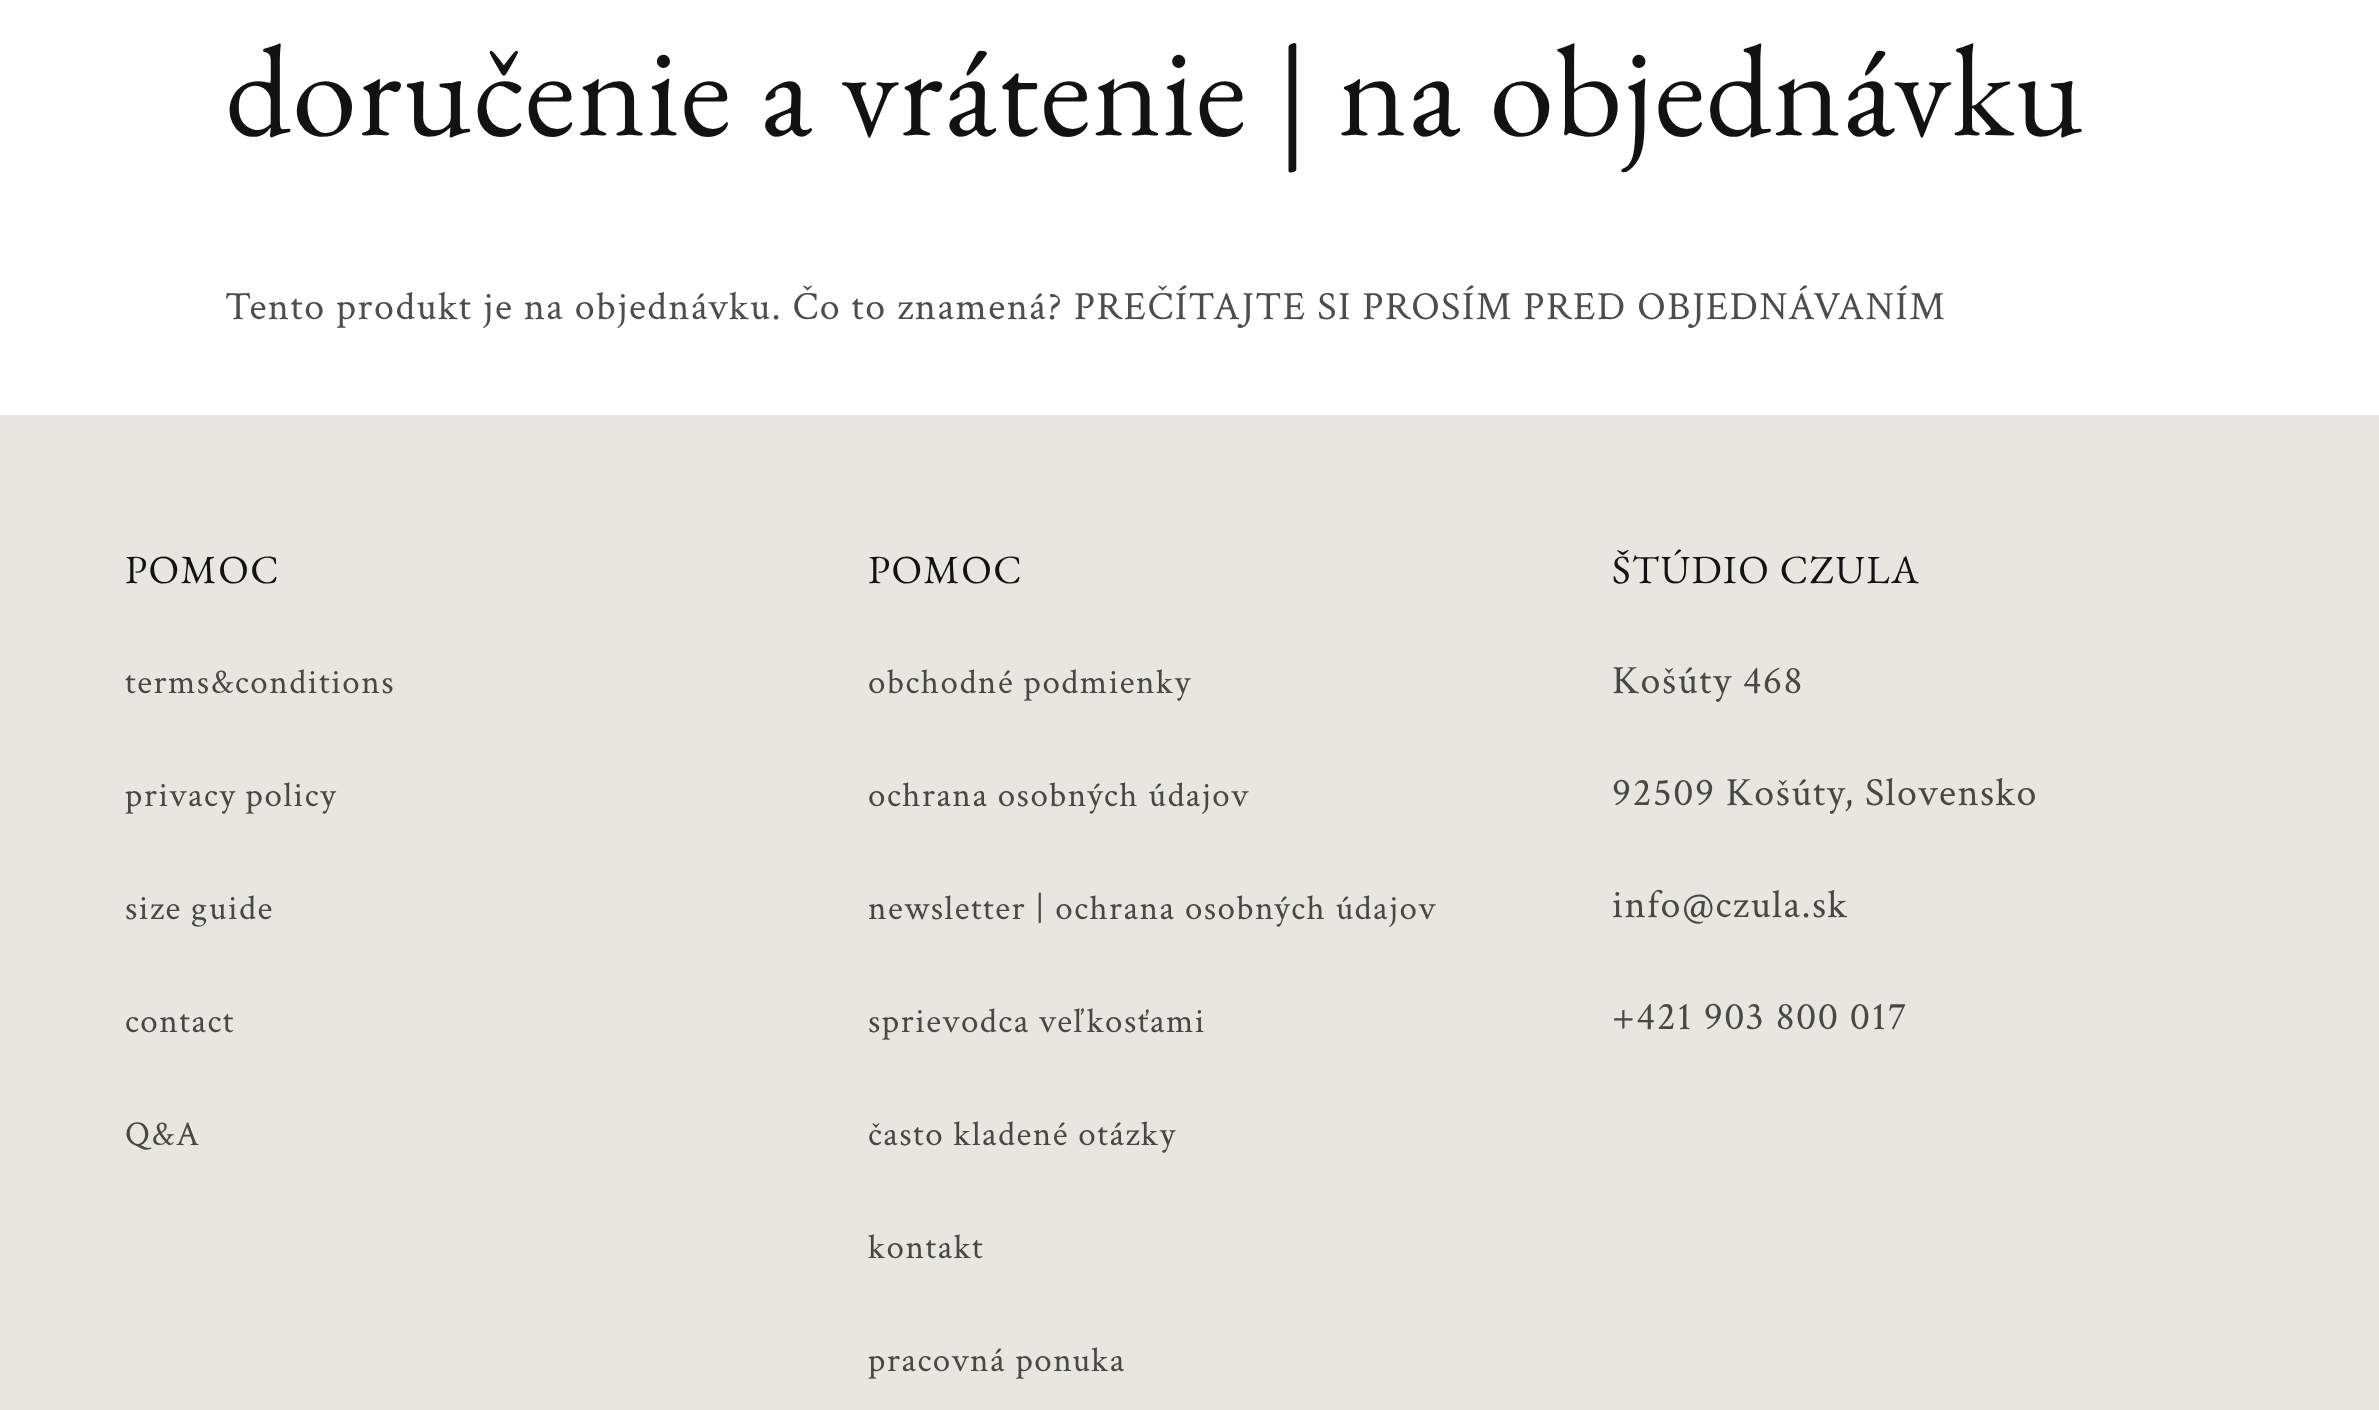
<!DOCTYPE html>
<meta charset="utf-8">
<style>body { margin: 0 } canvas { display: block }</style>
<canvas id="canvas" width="2379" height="1410"></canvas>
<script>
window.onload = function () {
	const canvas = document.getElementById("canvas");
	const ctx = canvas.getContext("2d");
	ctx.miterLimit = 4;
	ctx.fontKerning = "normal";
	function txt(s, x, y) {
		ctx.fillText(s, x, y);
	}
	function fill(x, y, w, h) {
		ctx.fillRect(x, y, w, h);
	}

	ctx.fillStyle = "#FFFFFF";
	fill(0, 0, 2379, 1410);
	ctx.fillStyle = "#E7E6E1";
	fill(0, 415, 2379, 995);
	ctx.letterSpacing = "1.5px";
	ctx.font = "130px EB Garamond";
	ctx.fillStyle = "#121212";
	txt("doručenie a vrátenie | na objednávku", 225, 135);
	ctx.font = "40px Crimson Text";
	ctx.fillStyle = "#4D4D4D";
	txt("Tento produkt je na objednávku. Čo to znamená? PREČÍTAJTE SI PROSÍM PRED OBJEDNÁVANÍM", 225, 319);
	ctx.font = "40px EB Garamond";
	ctx.fillStyle = "#121212";
	txt("POMOC", 125, 583);
	ctx.font = "35px Crimson Text";
	ctx.fillStyle = "#474746";
	txt("terms&conditions", 125, 693);
	txt("privacy policy", 125, 806);
	txt("size guide", 125, 919);
	txt("contact", 125, 1032);
	txt("Q&A", 125, 1145);
	ctx.font = "40px EB Garamond";
	ctx.fillStyle = "#121212";
	txt("POMOC", 868, 583);
	ctx.font = "35px Crimson Text";
	ctx.fillStyle = "#474746";
	txt("obchodné podmienky", 868, 693);
	txt("ochrana osobných údajov", 868, 806);
	txt("newsletter | ochrana osobných údajov", 868, 919);
	txt("sprievodca veľkosťami", 868, 1032);
	txt("často kladené otázky", 868, 1145);
	txt("kontakt", 868, 1258);
	txt("pracovná ponuka", 868, 1371);
	ctx.font = "40px EB Garamond";
	ctx.fillStyle = "#121212";
	txt("ŠTÚDIO CZULA", 1612, 583);
	ctx.font = "40px Crimson Text";
	ctx.fillStyle = "#474746";
	txt("Košúty 468", 1612, 693);
	txt("92509 Košúty, Slovensko", 1612, 805);
	txt("info@czula.sk", 1612, 917);
	txt("+421 903 800 017", 1612, 1029);
};
</script>
